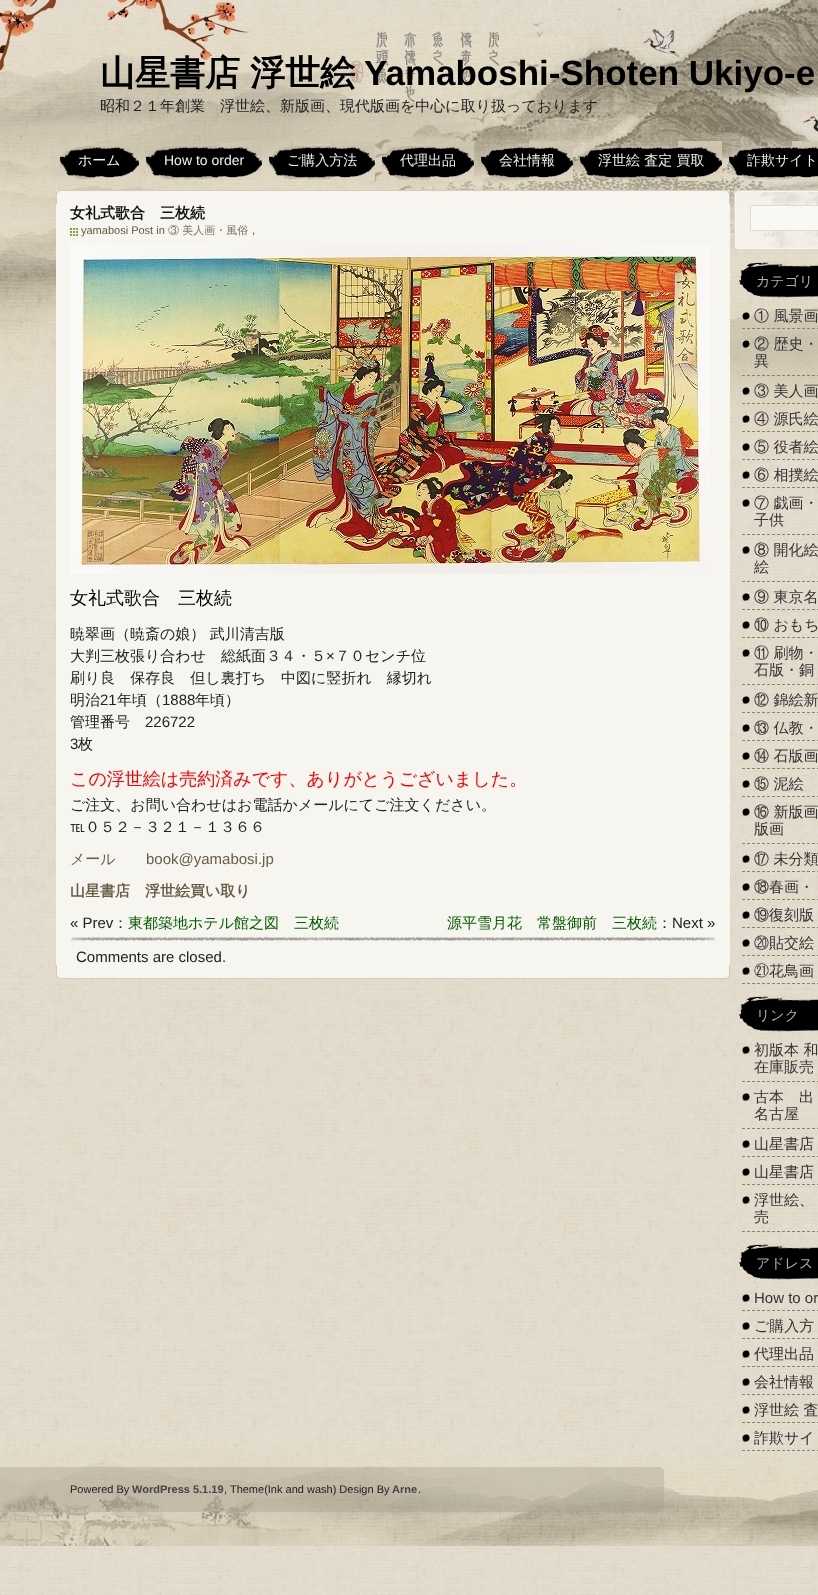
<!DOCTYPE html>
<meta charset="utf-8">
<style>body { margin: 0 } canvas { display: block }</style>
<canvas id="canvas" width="818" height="1595"></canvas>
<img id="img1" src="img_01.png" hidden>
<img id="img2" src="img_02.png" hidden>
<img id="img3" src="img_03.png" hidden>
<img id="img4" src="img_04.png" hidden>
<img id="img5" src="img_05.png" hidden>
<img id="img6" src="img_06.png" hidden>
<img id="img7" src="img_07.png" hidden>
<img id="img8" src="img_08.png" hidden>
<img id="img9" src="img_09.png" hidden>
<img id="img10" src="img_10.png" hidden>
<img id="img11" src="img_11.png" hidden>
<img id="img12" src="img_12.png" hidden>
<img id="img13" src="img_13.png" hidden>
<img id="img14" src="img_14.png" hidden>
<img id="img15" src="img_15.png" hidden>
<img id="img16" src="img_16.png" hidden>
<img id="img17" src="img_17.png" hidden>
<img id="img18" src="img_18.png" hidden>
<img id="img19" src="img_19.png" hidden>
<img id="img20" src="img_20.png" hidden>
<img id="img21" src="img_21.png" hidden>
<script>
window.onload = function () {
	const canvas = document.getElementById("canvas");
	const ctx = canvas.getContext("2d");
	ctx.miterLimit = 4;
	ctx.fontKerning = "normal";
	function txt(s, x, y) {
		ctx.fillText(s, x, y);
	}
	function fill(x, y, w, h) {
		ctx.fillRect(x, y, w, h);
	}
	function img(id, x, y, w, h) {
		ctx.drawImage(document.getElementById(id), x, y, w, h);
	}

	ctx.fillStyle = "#FFFFFF";
	fill(0, 0, 818, 1595);
	img("img1", 0, 471, 818, 1124);
	img("img2", 0, 0, 818, 471);
	img("img3", 60, 145, 35, 35);
	img("img4", 95, 141, 44, 40);
	img("img5", 146, 146, 110, 34);
	img("img6", 218, 141, 44, 38);
	img("img7", 269, 145, 62, 35);
	img("img4", 331, 141, 44, 40);
	img("img8", 382, 145, 48, 35);
	img("img4", 430, 141, 44, 40);
	img("img9", 481, 146, 48, 34);
	img("img4", 529, 141, 44, 40);
	img("img10", 580, 145, 98, 35);
	img("img4", 678, 141, 44, 40);
	img("img11", 729, 145, 63, 35);
	img("img12", 792, 141, 26, 40);
	ctx.fillStyle = "#F7F5EF";
	fill(56, 204, 674, 761);
	img("img13", 56, 190, 674, 14);
	img("img14", 70, 228, 8, 8);
	img("img15", 71, 937, 644, 4);
	img("img16", 70, 244, 640, 330);
	img("img17", 56, 965, 674, 14);
	img("img18", 734, 190, 84, 60);
	ctx.fillStyle = "#F9F8F5";
	ctx.beginPath();
	ctx.rect(750.5, 205.5, 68, 25);
	ctx.fill();
	ctx.strokeStyle = "#E2DACA";
	ctx.stroke();
	img("img19", 739, 260, 79, 38);
	img("img20", 742, 312, 8, 8);
	ctx.beginPath();
	ctx.moveTo(742, 328.5);
	ctx.lineTo(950, 328.5);
	ctx.strokeStyle = "#8A8371";
	ctx.setLineDash([3, 2]);
	ctx.stroke();
	img("img20", 742, 340, 8, 8);
	ctx.beginPath();
	ctx.moveTo(742, 375.5);
	ctx.lineTo(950, 375.5);
	ctx.stroke();
	img("img20", 742, 387, 8, 8);
	ctx.beginPath();
	ctx.moveTo(742, 403.5);
	ctx.lineTo(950, 403.5);
	ctx.stroke();
	img("img20", 742, 415, 8, 8);
	ctx.beginPath();
	ctx.moveTo(742, 431.5);
	ctx.lineTo(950, 431.5);
	ctx.stroke();
	img("img20", 742, 443, 8, 8);
	ctx.beginPath();
	ctx.moveTo(742, 459.5);
	ctx.lineTo(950, 459.5);
	ctx.stroke();
	img("img20", 742, 471, 8, 8);
	ctx.beginPath();
	ctx.moveTo(742, 487.5);
	ctx.lineTo(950, 487.5);
	ctx.stroke();
	img("img20", 742, 499, 8, 8);
	ctx.beginPath();
	ctx.moveTo(742, 534.5);
	ctx.lineTo(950, 534.5);
	ctx.stroke();
	img("img20", 742, 546, 8, 8);
	ctx.beginPath();
	ctx.moveTo(742, 581.5);
	ctx.lineTo(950, 581.5);
	ctx.stroke();
	img("img20", 742, 593, 8, 8);
	ctx.beginPath();
	ctx.moveTo(742, 609.5);
	ctx.lineTo(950, 609.5);
	ctx.stroke();
	img("img20", 742, 621, 8, 8);
	ctx.beginPath();
	ctx.moveTo(742, 637.5);
	ctx.lineTo(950, 637.5);
	ctx.stroke();
	img("img20", 742, 649, 8, 8);
	ctx.beginPath();
	ctx.moveTo(742, 684.5);
	ctx.lineTo(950, 684.5);
	ctx.stroke();
	img("img20", 742, 696, 8, 8);
	ctx.beginPath();
	ctx.moveTo(742, 712.5);
	ctx.lineTo(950, 712.5);
	ctx.stroke();
	img("img20", 742, 724, 8, 8);
	ctx.beginPath();
	ctx.moveTo(742, 740.5);
	ctx.lineTo(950, 740.5);
	ctx.stroke();
	img("img20", 742, 752, 8, 8);
	ctx.beginPath();
	ctx.moveTo(742, 768.5);
	ctx.lineTo(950, 768.5);
	ctx.stroke();
	img("img20", 742, 780, 8, 8);
	ctx.beginPath();
	ctx.moveTo(742, 796.5);
	ctx.lineTo(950, 796.5);
	ctx.stroke();
	img("img20", 742, 808, 8, 8);
	ctx.beginPath();
	ctx.moveTo(742, 843.5);
	ctx.lineTo(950, 843.5);
	ctx.stroke();
	img("img20", 742, 855, 8, 8);
	ctx.beginPath();
	ctx.moveTo(742, 871.5);
	ctx.lineTo(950, 871.5);
	ctx.stroke();
	img("img20", 742, 883, 8, 8);
	ctx.beginPath();
	ctx.moveTo(742, 899.5);
	ctx.lineTo(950, 899.5);
	ctx.stroke();
	img("img20", 742, 911, 8, 8);
	ctx.beginPath();
	ctx.moveTo(742, 927.5);
	ctx.lineTo(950, 927.5);
	ctx.stroke();
	img("img20", 742, 939, 8, 8);
	ctx.beginPath();
	ctx.moveTo(742, 955.5);
	ctx.lineTo(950, 955.5);
	ctx.stroke();
	img("img20", 742, 967, 8, 8);
	ctx.beginPath();
	ctx.moveTo(742, 983.5);
	ctx.lineTo(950, 983.5);
	ctx.stroke();
	img("img19", 739, 994, 79, 38);
	img("img20", 742, 1046, 8, 8);
	ctx.beginPath();
	ctx.moveTo(742, 1081.5);
	ctx.lineTo(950, 1081.5);
	ctx.stroke();
	img("img20", 742, 1093, 8, 8);
	ctx.beginPath();
	ctx.moveTo(742, 1128.5);
	ctx.lineTo(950, 1128.5);
	ctx.stroke();
	img("img20", 742, 1140, 8, 8);
	ctx.beginPath();
	ctx.moveTo(742, 1156.5);
	ctx.lineTo(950, 1156.5);
	ctx.stroke();
	img("img20", 742, 1168, 8, 8);
	ctx.beginPath();
	ctx.moveTo(742, 1184.5);
	ctx.lineTo(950, 1184.5);
	ctx.stroke();
	img("img20", 742, 1196, 8, 8);
	ctx.beginPath();
	ctx.moveTo(742, 1231.5);
	ctx.lineTo(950, 1231.5);
	ctx.stroke();
	img("img19", 739, 1242, 79, 38);
	img("img20", 742, 1294, 8, 8);
	ctx.beginPath();
	ctx.moveTo(742, 1310.5);
	ctx.lineTo(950, 1310.5);
	ctx.stroke();
	img("img20", 742, 1322, 8, 8);
	ctx.beginPath();
	ctx.moveTo(742, 1338.5);
	ctx.lineTo(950, 1338.5);
	ctx.stroke();
	img("img20", 742, 1350, 8, 8);
	ctx.beginPath();
	ctx.moveTo(742, 1366.5);
	ctx.lineTo(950, 1366.5);
	ctx.stroke();
	img("img20", 742, 1378, 8, 8);
	ctx.beginPath();
	ctx.moveTo(742, 1394.5);
	ctx.lineTo(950, 1394.5);
	ctx.stroke();
	img("img20", 742, 1406, 8, 8);
	ctx.beginPath();
	ctx.moveTo(742, 1422.5);
	ctx.lineTo(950, 1422.5);
	ctx.stroke();
	img("img20", 742, 1434, 8, 8);
	ctx.beginPath();
	ctx.moveTo(742, 1450.5);
	ctx.lineTo(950, 1450.5);
	ctx.stroke();
	img("img21", 0, 1451, 818, 95);
	ctx.font = "bold 35px WenQuanYi Zen Hei";
	ctx.fillStyle = "#000000";
	txt("山星書店", 100, 85);
	txt("浮世絵", 250, 85);
	ctx.font = "bold 35px Liberation Sans";
	txt("Yamaboshi-Shoten Ukiyo-e", 364, 85);
	ctx.font = "500 15px WenQuanYi Zen Hei";
	ctx.fillStyle = "#222222";
	txt("昭和２１年創業　浮世絵、新版画、現代版画を中心に取り扱っております", 100, 111);
	ctx.font = "500 14px WenQuanYi Zen Hei";
	ctx.fillStyle = "#F4F0E8";
	txt("ホーム", 78, 165);
	ctx.font = "14px Liberation Sans";
	txt("How to order", 164, 165);
	ctx.font = "500 14px WenQuanYi Zen Hei";
	txt("ご購入方法", 287, 165);
	txt("代理出品", 400, 165);
	txt("会社情報", 499, 165);
	txt("浮世絵 査定 買取", 598, 165);
	txt("詐欺サイト", 747, 165);
	ctx.font = "bold 15px WenQuanYi Zen Hei";
	ctx.fillStyle = "#111111";
	txt("女礼式歌合　三枚続", 70, 218);
	ctx.font = "11px Liberation Sans";
	ctx.fillStyle = "#63593E";
	txt("yamabosi Post in", 81, 234);
	ctx.font = "500 11px WenQuanYi Zen Hei";
	ctx.fillStyle = "#7C735A";
	txt("③ 美人画・風俗", 168, 234);
	ctx.fillStyle = "#63593E";
	txt("，", 248, 234);
	ctx.font = "500 18px WenQuanYi Zen Hei";
	ctx.fillStyle = "#000000";
	txt("女礼式歌合　三枚続", 70, 604);
	ctx.font = "500 15px WenQuanYi Zen Hei";
	ctx.fillStyle = "#222222";
	txt("暁翠画（暁斎の娘） 武川清吉版", 70, 639);
	txt("大判三枚張り合わせ　総紙面３４・５", 70, 661);
	ctx.font = "15px Liberation Sans";
	txt("×", 326, 661);
	ctx.font = "500 15px WenQuanYi Zen Hei";
	txt("７０センチ位", 335, 661);
	txt("刷り良　保存良　但し裏打ち　中図に竪折れ　縁切れ", 70, 683);
	txt("明治", 70, 705);
	ctx.font = "15px Liberation Sans";
	txt("21", 100, 705);
	ctx.font = "500 15px WenQuanYi Zen Hei";
	txt("年頃（", 117, 705);
	ctx.font = "15px Liberation Sans";
	txt("1888", 162, 705);
	ctx.font = "500 15px WenQuanYi Zen Hei";
	txt("年頃）", 195, 705);
	txt("管理番号", 70, 727);
	ctx.font = "15px Liberation Sans";
	txt("226722", 145, 727);
	txt("3", 70, 749);
	ctx.font = "500 15px WenQuanYi Zen Hei";
	txt("枚", 78, 749);
	ctx.font = "500 18px WenQuanYi Zen Hei";
	ctx.fillStyle = "#FF0000";
	txt("この浮世絵は売約済みです、ありがとうございました。", 70, 785);
	ctx.font = "500 15px WenQuanYi Zen Hei";
	ctx.fillStyle = "#222222";
	txt("ご注文、お問い合わせはお電話かメールにてご注文ください。", 70, 810);
	txt("℡０５２－３２１－１３６６", 70, 832);
	ctx.fillStyle = "#685D46";
	txt("メール", 70, 864);
	ctx.font = "15px Liberation Sans";
	txt("book@yamabosi.jp", 146, 864);
	ctx.font = "bold 15px WenQuanYi Zen Hei";
	txt("山星書店", 70, 896);
	txt("浮世絵買い取り", 145, 896);
	ctx.font = "15px Liberation Sans";
	ctx.fillStyle = "#222222";
	txt("« Prev", 70, 928);
	ctx.font = "500 15px WenQuanYi Zen Hei";
	txt("：", 113, 928);
	ctx.fillStyle = "#065B00";
	txt("東都築地ホテル館之図　三枚続", 128, 928);
	txt("源平雪月花　常盤御前　三枚続", 447, 928);
	ctx.fillStyle = "#222222";
	txt("：", 657, 928);
	ctx.font = "15px Liberation Sans";
	txt("Next »", 672, 928);
	txt("Comments are closed.", 76, 962);
	ctx.font = "500 14px WenQuanYi Zen Hei";
	ctx.fillStyle = "#B7B1A1";
	txt("カテゴリ", 756, 286);
	ctx.font = "500 15px WenQuanYi Zen Hei";
	ctx.fillStyle = "#333333";
	txt("① 風景画", 754, 321);
	txt("② 歴史・", 754, 349);
	txt("異", 754, 366);
	txt("③ 美人画", 754, 396);
	txt("④ 源氏絵", 754, 424);
	txt("⑤ 役者絵", 754, 452);
	txt("⑥ 相撲絵", 754, 480);
	txt("⑦ 戯画・", 754, 508);
	txt("子供", 754, 525);
	txt("⑧ 開化絵", 754, 555);
	txt("絵", 754, 572);
	txt("⑨ 東京名", 754, 602);
	txt("⑩ おもち", 754, 630);
	txt("⑪ 刷物・", 754, 658);
	txt("石版・銅", 754, 675);
	txt("⑫ 錦絵新", 754, 705);
	txt("⑬ 仏教・", 754, 733);
	txt("⑭ 石版画", 754, 761);
	txt("⑮ 泥絵", 754, 789);
	txt("⑯ 新版画", 754, 817);
	txt("版画", 754, 834);
	txt("⑰ 未分類", 754, 864);
	txt("⑱春画・", 754, 892);
	txt("⑲復刻版", 754, 920);
	txt("⑳貼交絵", 754, 948);
	ctx.font = "15px IPAPGothic";
	txt("㉑", 754, 976);
	ctx.font = "500 15px WenQuanYi Zen Hei";
	txt("花鳥画", 769, 976);
	ctx.font = "500 14px WenQuanYi Zen Hei";
	ctx.fillStyle = "#B7B1A1";
	txt("リンク", 756, 1020);
	ctx.font = "500 15px WenQuanYi Zen Hei";
	ctx.fillStyle = "#333333";
	txt("初版本 和", 754, 1055);
	txt("在庫販売", 754, 1072);
	txt("古本　出", 754, 1102);
	txt("名古屋", 754, 1119);
	txt("山星書店", 754, 1149);
	txt("山星書店", 754, 1177);
	txt("浮世絵、", 754, 1205);
	txt("売", 754, 1222);
	ctx.font = "500 14px WenQuanYi Zen Hei";
	ctx.fillStyle = "#B7B1A1";
	txt("アドレス", 756, 1268);
	ctx.font = "15px Liberation Sans";
	ctx.fillStyle = "#333333";
	txt("How to or", 754, 1303);
	ctx.font = "500 15px WenQuanYi Zen Hei";
	txt("ご購入方", 754, 1331);
	txt("代理出品", 754, 1359);
	txt("会社情報", 754, 1387);
	txt("浮世絵 査", 754, 1415);
	txt("詐欺サイ", 754, 1443);
	ctx.font = "11px Liberation Sans";
	ctx.fillStyle = "#222222";
	txt("Powered By", 70, 1493);
	ctx.font = "bold 11px Liberation Sans";
	ctx.fillStyle = "#444444";
	txt("WordPress 5.1.19", 132, 1493);
	ctx.font = "11px Liberation Sans";
	ctx.fillStyle = "#222222";
	txt(", Theme(Ink and wash) Design By", 224, 1493);
	ctx.font = "bold 11px Liberation Sans";
	ctx.fillStyle = "#444444";
	txt("Arne", 392, 1493);
	ctx.font = "11px Liberation Sans";
	ctx.fillStyle = "#222222";
	txt(".", 418, 1493);
};
</script>
